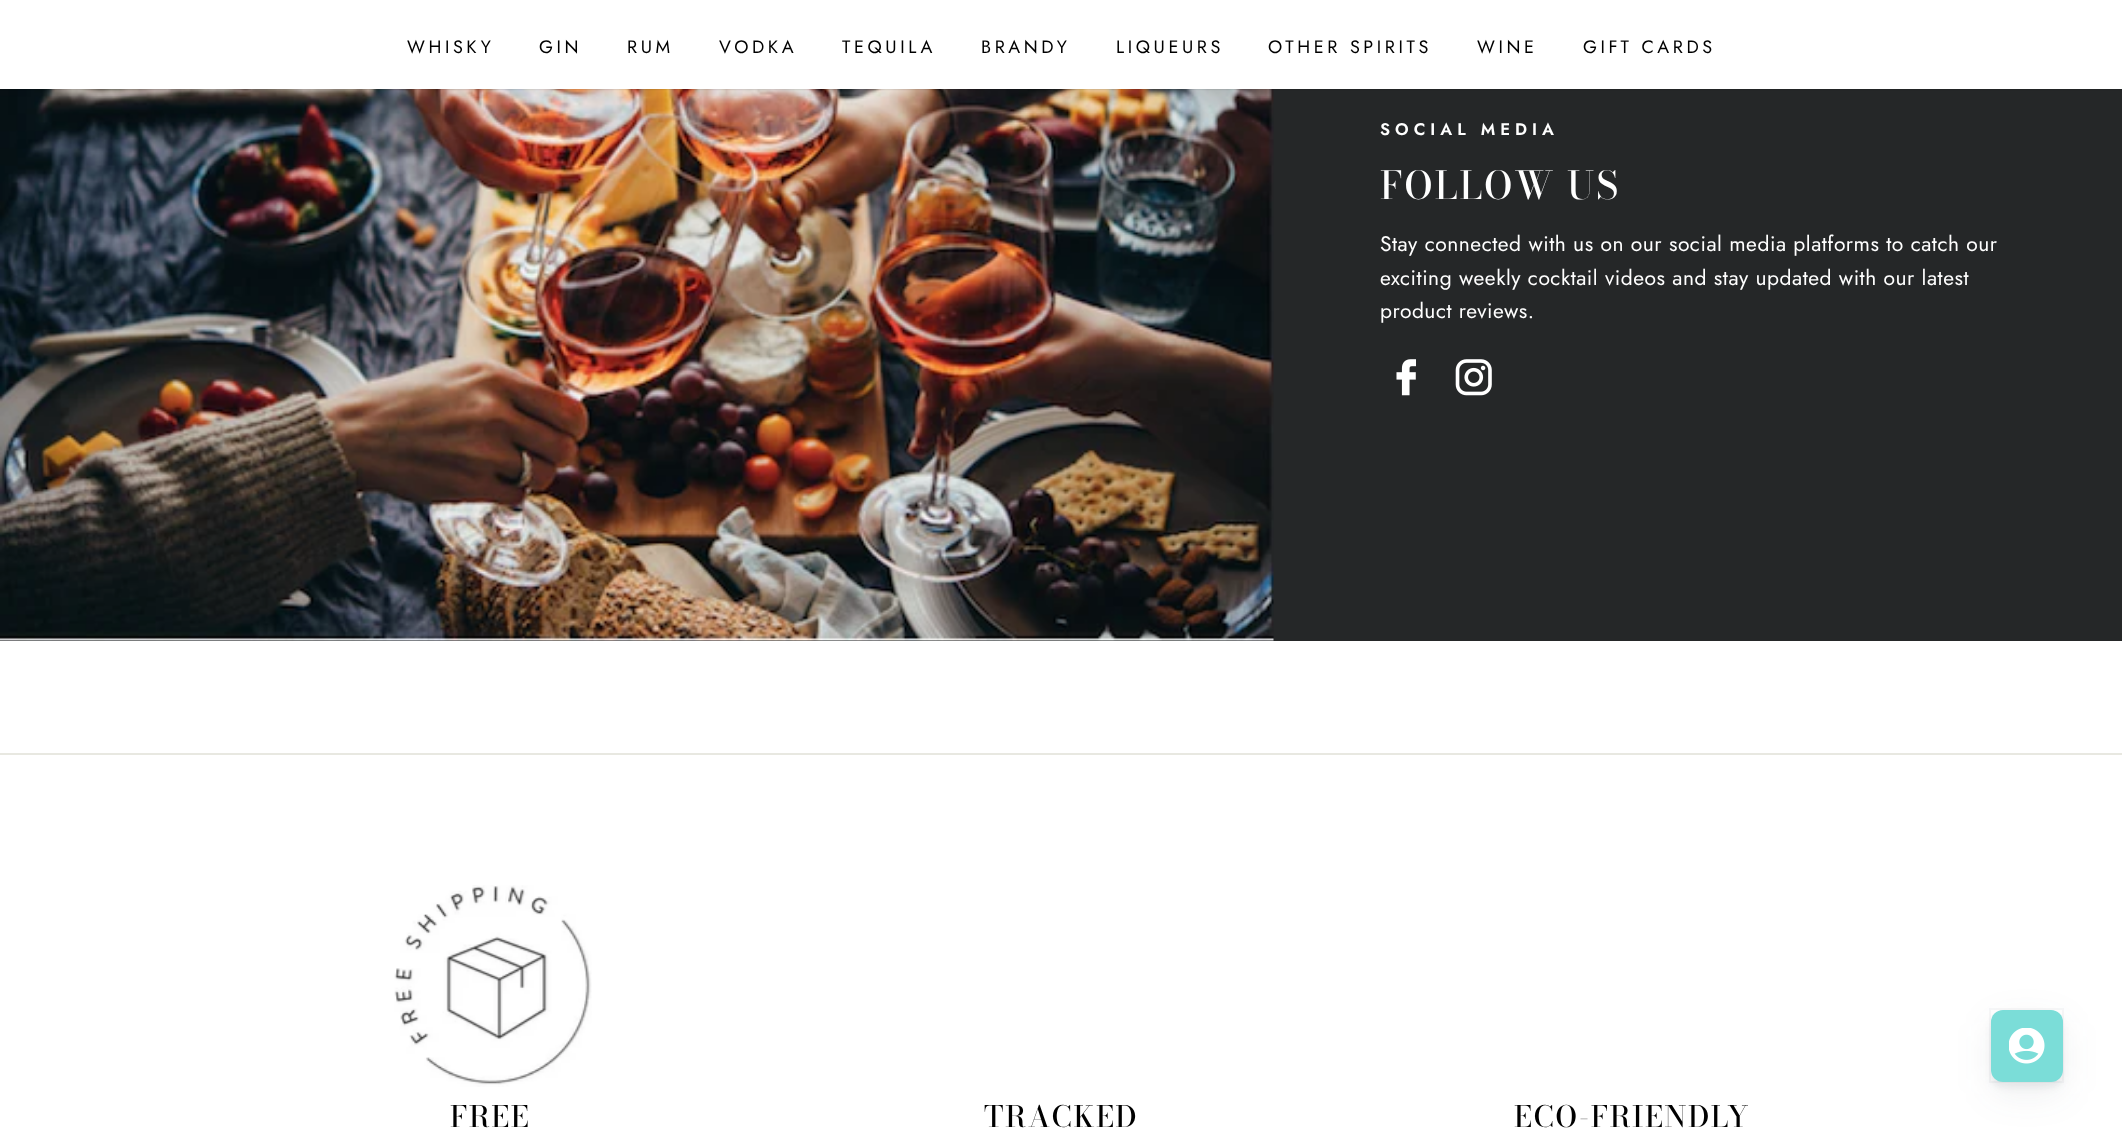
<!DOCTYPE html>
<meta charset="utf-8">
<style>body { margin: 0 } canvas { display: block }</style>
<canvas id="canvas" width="2122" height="1141"></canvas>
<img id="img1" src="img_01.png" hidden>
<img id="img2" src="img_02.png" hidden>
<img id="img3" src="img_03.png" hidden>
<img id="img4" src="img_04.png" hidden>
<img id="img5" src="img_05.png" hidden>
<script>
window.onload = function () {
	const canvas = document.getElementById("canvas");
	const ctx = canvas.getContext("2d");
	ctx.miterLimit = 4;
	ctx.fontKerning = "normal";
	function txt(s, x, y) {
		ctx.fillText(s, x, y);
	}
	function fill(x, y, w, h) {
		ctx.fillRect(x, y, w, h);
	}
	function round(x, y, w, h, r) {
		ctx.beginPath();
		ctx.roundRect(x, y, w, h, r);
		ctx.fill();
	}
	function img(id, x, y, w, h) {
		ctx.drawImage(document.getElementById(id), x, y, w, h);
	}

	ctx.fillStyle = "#FFFFFF";
	fill(0, 0, 2122, 1141);
	ctx.fillStyle = "#252728";
	fill(0, 89, 2122, 552);
	img("img1", 0, 89, 1274, 552);
	ctx.fillStyle = "rgba(0, 0, 0, 0.2)";
	ctx.filter = "blur(1px)";
	ctx.beginPath();
	ctx.rect(0, 0, 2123, 89);
	ctx.fill();
	ctx.filter = "none";
	ctx.fillStyle = "#FFFFFF";
	fill(0, 0, 2122, 89);
	img("img2", 1396, 359, 20, 37);
	img("img3", 1455, 359, 37, 37);
	ctx.fillStyle = "#E8E8E1";
	fill(0, 753, 2122, 2);
	img("img4", 394, 885, 198, 202);
	ctx.fillStyle = "rgba(55, 63, 71, 0.08)";
	ctx.filter = "blur(18px)";
	ctx.beginPath();
	ctx.roundRect(1991, 1022, 72, 72, 12);
	ctx.fill();
	ctx.filter = "none";
	ctx.filter = "blur(3px)";
	ctx.beginPath();
	ctx.roundRect(1991, 1016, 72, 72, 12);
	ctx.fill();
	ctx.filter = "none";
	ctx.strokeStyle = "rgba(55, 63, 71, 0.04)";
	ctx.lineWidth = 2;
	ctx.strokeRect(1990, 1009, 73, 73);
	ctx.fillStyle = "#7BDDD8";
	round(1991, 1010, 72, 72, 12);
	img("img5", 2009, 1028, 36, 36);
	ctx.letterSpacing = "3.6px";
	ctx.font = "18px Jost";
	ctx.fillStyle = "#000000";
	txt("WHISKY", 407, 53);
	txt("GIN", 539, 53);
	txt("RUM", 627, 53);
	txt("VODKA", 719, 53);
	txt("TEQUILA", 842, 53);
	txt("BRANDY", 981, 53);
	txt("LIQUEURS", 1116, 53);
	txt("OTHER SPIRITS", 1268, 53);
	txt("WINE", 1477, 53);
	txt("GIFT CARDS", 1583, 53);
	ctx.letterSpacing = "5px";
	ctx.font = "600 16.75px Jost";
	ctx.fillStyle = "#FFFFFF";
	txt("SOCIAL MEDIA", 1380, 135);
	ctx.letterSpacing = "2px";
	ctx.font = "500 38.25px Bodoni Moda";
	txt("FOLLOW US", 1380, 199);
	ctx.letterSpacing = "0.52px";
	ctx.font = "21px Jost";
	txt("Stay connected with us on our social media platforms to catch our", 1380, 251);
	txt("exciting weekly cocktail videos and stay updated with our latest", 1380, 285);
	txt("product reviews.", 1380, 318);
	ctx.letterSpacing = "1.5px";
	ctx.font = "500 29.25px 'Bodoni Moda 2'";
	ctx.fillStyle = "#000000";
	txt("FREE", 450, 1127);
	txt("TRACKED", 984, 1127);
	txt("ECO-FRIENDLY", 1514, 1127);
};
</script>
